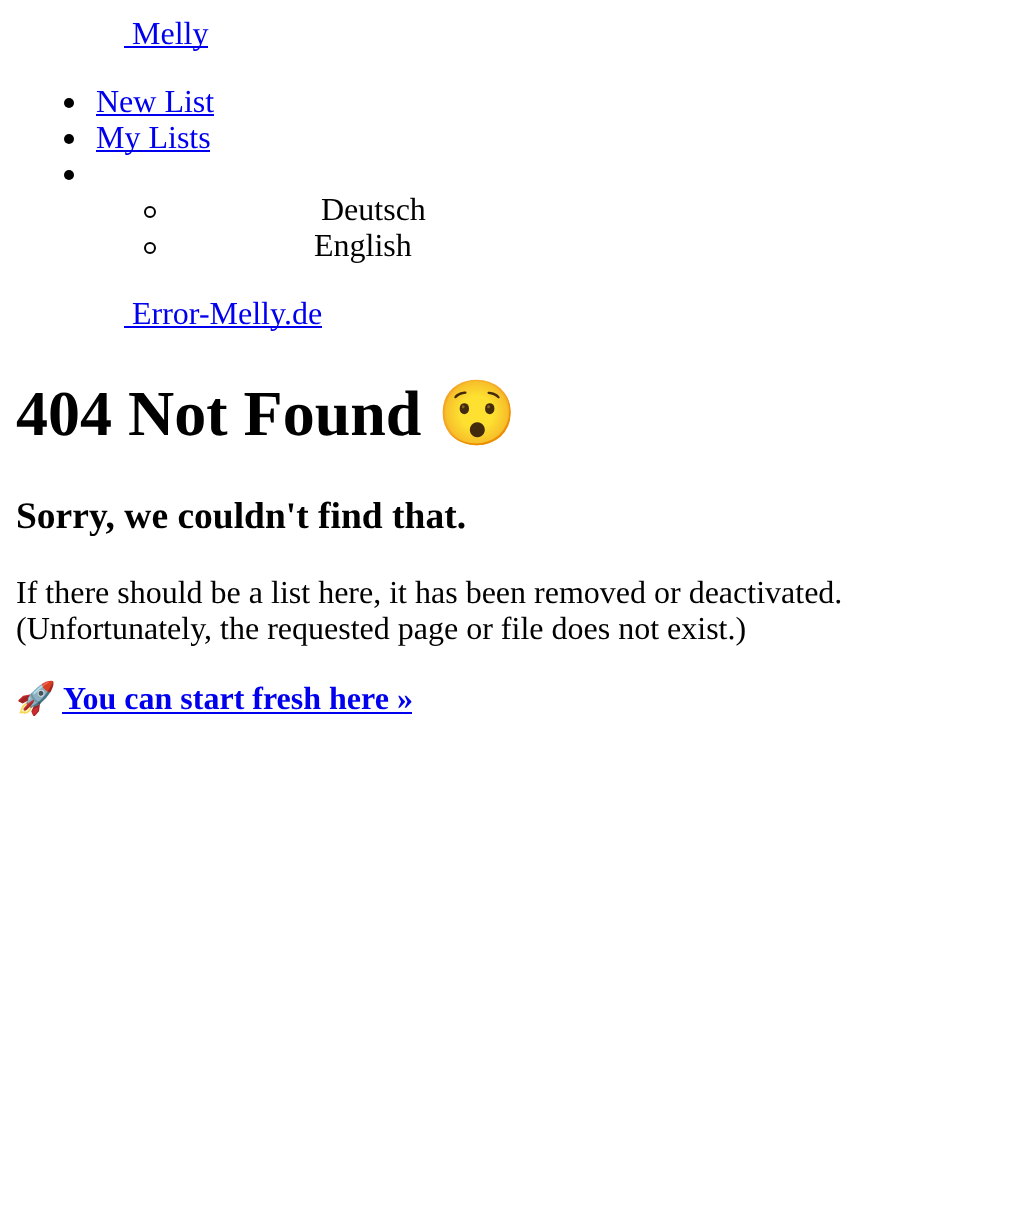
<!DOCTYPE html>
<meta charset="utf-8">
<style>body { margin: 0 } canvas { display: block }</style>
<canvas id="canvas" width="1012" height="1229"></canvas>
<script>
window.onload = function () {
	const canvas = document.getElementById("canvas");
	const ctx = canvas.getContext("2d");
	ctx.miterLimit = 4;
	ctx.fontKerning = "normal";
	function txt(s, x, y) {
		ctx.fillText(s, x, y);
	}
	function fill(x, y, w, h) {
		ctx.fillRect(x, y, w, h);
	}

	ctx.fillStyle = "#FFFFFF";
	fill(0, 0, 1012, 1229);
	ctx.fillStyle = "#0000EE";
	fill(124, 46, 84, 2);
	ctx.fillStyle = "#000000";
	ctx.beginPath();
	ctx.arc(69, 103, 5, 0, Math.PI * 2);
	ctx.fill();
	ctx.fillStyle = "#0000EE";
	fill(96, 114, 118, 2);
	ctx.fillStyle = "#000000";
	ctx.beginPath();
	ctx.arc(69, 139, 5, 0, Math.PI * 2);
	ctx.fill();
	ctx.fillStyle = "#0000EE";
	fill(96, 150, 114, 2);
	ctx.fillStyle = "#000000";
	ctx.beginPath();
	ctx.arc(69, 175, 5, 0, Math.PI * 2);
	ctx.fill();
	ctx.beginPath();
	ctx.arc(150, 212, 5, 0, Math.PI * 2);
	ctx.strokeStyle = "#000000";
	ctx.lineWidth = 2;
	ctx.stroke();
	ctx.beginPath();
	ctx.arc(150, 248, 5, 0, Math.PI * 2);
	ctx.stroke();
	ctx.fillStyle = "#0000EE";
	fill(124, 326, 198, 2);
	fill(62, 712, 350, 2);
	ctx.font = "32px Liberation Serif";
	txt("Melly", 132, 44);
	txt("New List", 96, 112);
	txt("My Lists", 96, 148);
	ctx.fillStyle = "#000000";
	txt("Deutsch", 321, 220);
	txt("English", 314, 256);
	ctx.fillStyle = "#0000EE";
	txt("Error-Melly.de", 132, 324);
	ctx.font = "bold 64px Liberation Serif";
	ctx.fillStyle = "#000000";
	txt("404 Not Found", 16, 435);
	ctx.font = "bold 64px Noto Color Emoji";
	txt("😯", 437, 435);
	ctx.font = "bold 37.5px Liberation Serif";
	txt("Sorry, we couldn't find that.", 16, 528);
	ctx.font = "32px Liberation Serif";
	txt("If there should be a list here, it has been removed or deactivated.", 16, 603);
	txt("(Unfortunately, the requested page or file does not exist.)", 16, 639);
	ctx.font = "bold 32px Noto Color Emoji";
	txt("🚀", 16, 709);
	ctx.font = "bold 32px Liberation Serif";
	ctx.fillStyle = "#0000EE";
	txt("You can start fresh here »", 63, 709);
};
</script>
